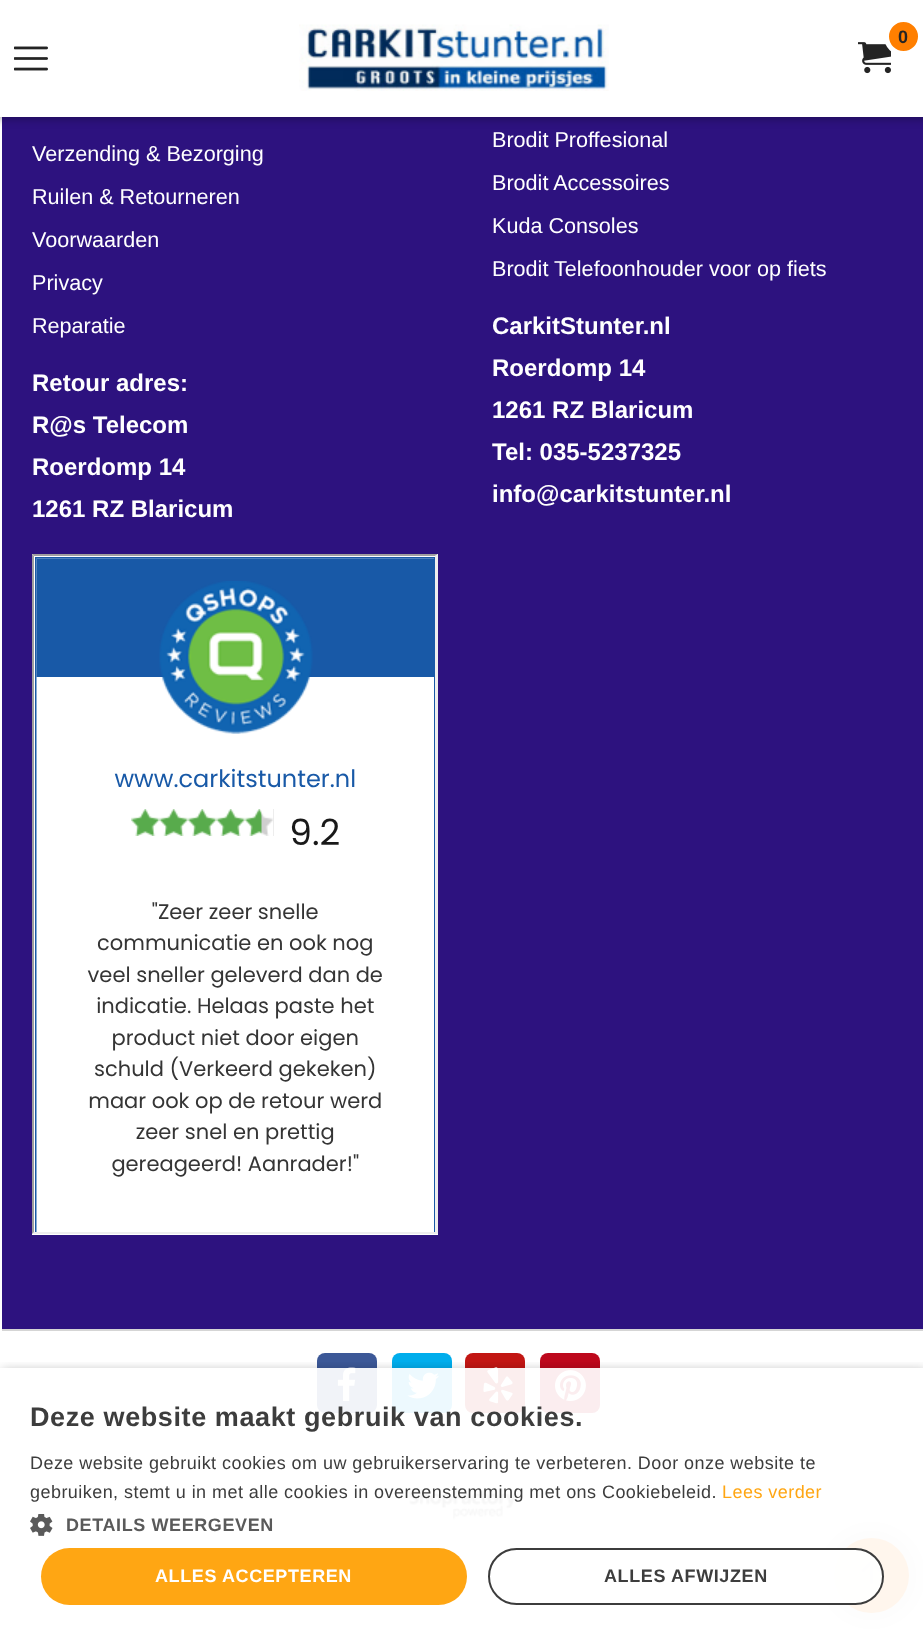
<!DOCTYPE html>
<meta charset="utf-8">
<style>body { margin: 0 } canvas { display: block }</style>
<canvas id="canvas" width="923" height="1634"></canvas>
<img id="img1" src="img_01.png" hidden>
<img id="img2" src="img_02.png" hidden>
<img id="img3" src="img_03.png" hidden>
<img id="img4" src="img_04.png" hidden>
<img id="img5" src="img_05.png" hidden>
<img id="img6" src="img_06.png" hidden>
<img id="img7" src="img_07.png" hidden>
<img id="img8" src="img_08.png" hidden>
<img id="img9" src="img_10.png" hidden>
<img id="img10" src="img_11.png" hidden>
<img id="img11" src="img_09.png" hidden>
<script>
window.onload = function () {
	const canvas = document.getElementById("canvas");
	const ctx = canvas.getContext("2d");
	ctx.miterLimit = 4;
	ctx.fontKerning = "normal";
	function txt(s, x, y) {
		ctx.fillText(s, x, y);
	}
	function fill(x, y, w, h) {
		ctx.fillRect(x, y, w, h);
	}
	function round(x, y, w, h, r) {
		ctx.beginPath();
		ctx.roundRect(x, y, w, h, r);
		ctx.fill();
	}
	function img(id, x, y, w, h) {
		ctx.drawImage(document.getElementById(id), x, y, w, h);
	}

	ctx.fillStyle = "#FFFFFF";
	fill(0, 0, 923, 1634);
	ctx.fillStyle = "#2D127F";
	fill(2, 117, 921, 1212);
	ctx.fillStyle = "rgba(0, 0, 0, 0.3)";
	ctx.filter = "blur(4px)";
	ctx.beginPath();
	ctx.rect(-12, -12, 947, 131);
	ctx.fill();
	ctx.filter = "none";
	ctx.fillStyle = "#FFFFFF";
	fill(0, 0, 923, 117);
	img("img1", 299, 24, 310, 67);
	img("img2", 858, 42, 33, 32);
	ctx.fillStyle = "#FF7F00";
	ctx.beginPath();
	ctx.arc(903.5, 36.5, 17, 0, Math.PI * 2);
	ctx.fill();
	ctx.strokeStyle = "#FFFFFF";
	ctx.lineWidth = 5;
	ctx.stroke();
	img("img3", 14, 46, 34, 25);
	ctx.fillStyle = "#FFFFFF";
	fill(32, 554, 406, 681);
	ctx.fillStyle = "#9F9F9F";
	ctx.beginPath();
	ctx.moveTo(32, 554);
	ctx.lineTo(438, 554);
	ctx.lineTo(435, 556);
	ctx.lineTo(34, 556);
	ctx.closePath();
	ctx.fill();
	ctx.fillStyle = "#EEEEEE";
	ctx.beginPath();
	ctx.moveTo(438, 554);
	ctx.lineTo(438, 1234);
	ctx.lineTo(435, 1232);
	ctx.lineTo(435, 556);
	ctx.closePath();
	ctx.fill();
	ctx.beginPath();
	ctx.moveTo(438, 1234);
	ctx.lineTo(32, 1234);
	ctx.lineTo(34, 1232);
	ctx.lineTo(435, 1232);
	ctx.closePath();
	ctx.fill();
	ctx.fillStyle = "#9F9F9F";
	ctx.beginPath();
	ctx.moveTo(32, 1234);
	ctx.lineTo(32, 554);
	ctx.lineTo(34, 556);
	ctx.lineTo(34, 1232);
	ctx.closePath();
	ctx.fill();
	img("img4", 35, 557, 400, 675);
	ctx.fillStyle = "#D5D5D5";
	fill(2, 1329, 921, 2);
	ctx.fillStyle = "#3C5897";
	round(317, 1353, 60, 60, 8);
	img("img5", 337, 1367, 19, 34);
	ctx.fillStyle = "#00ADEC";
	round(392, 1353, 60, 60, 8);
	img("img6", 407, 1372, 32, 27);
	ctx.fillStyle = "#C21613";
	round(465, 1353, 60, 60, 8);
	img("img7", 483, 1367, 30, 37);
	ctx.fillStyle = "#BD081C";
	round(540, 1353, 60, 60, 8);
	img("img8", 555, 1370, 31, 31);
	img("img9", 409, 1489, 108, 31);
	ctx.fillStyle = "rgba(0, 0, 0, 0.2)";
	ctx.filter = "blur(13px)";
	ctx.beginPath();
	ctx.roundRect(825, 1529, 93, 93, 46.5);
	ctx.fill();
	ctx.filter = "none";
	ctx.fillStyle = "#FF7F00";
	ctx.beginPath();
	ctx.arc(871.5, 1575.5, 37.5, 0, Math.PI * 2);
	ctx.fill();
	img("img10", 861, 1560, 21, 24);
	ctx.save();
	ctx.beginPath();
	ctx.rect(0, 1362, 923, 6);
	ctx.clip();
	ctx.fillStyle = "rgba(0, 0, 0, 0.32)";
	ctx.filter = "blur(6px)";
	ctx.beginPath();
	ctx.rect(2, 1371, 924, 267);
	ctx.fill();
	ctx.filter = "none";
	ctx.restore();
	ctx.fillStyle = "rgba(255, 255, 255, 0.93)";
	fill(317, 1368, 606, 266);
	img("img11", 30, 1514, 23, 22);
	ctx.fillStyle = "#FFA613";
	round(41, 1548, 426, 57, 28.5);
	ctx.fillStyle = "rgba(255, 255, 255, 0.93)";
	round(488, 1548, 396, 57, 28.5);
	ctx.beginPath();
	ctx.roundRect(489, 1549, 394, 55, 27.5);
	ctx.strokeStyle = "rgba(45, 45, 45, 0.93)";
	ctx.lineWidth = 2;
	ctx.stroke();
	ctx.font = "bold 18px Liberation Sans";
	ctx.fillStyle = "#242424";
	txt("0", 898, 43);
	ctx.font = "21.6px Liberation Sans";
	ctx.fillStyle = "#FFFFFF";
	txt("Verzending & Bezorging", 32, 161);
	txt("Ruilen & Retourneren", 32, 204);
	txt("Voorwaarden", 32, 247);
	txt("Privacy", 32, 290);
	txt("Reparatie", 32, 333);
	ctx.font = "bold 24px Liberation Sans";
	txt("Retour adres:", 32, 391);
	txt("R@s Telecom", 32, 433);
	txt("Roerdomp 14", 32, 475);
	txt("1261 RZ Blaricum", 32, 517);
	ctx.font = "21.6px Liberation Sans";
	txt("Brodit Proffesional", 492, 147);
	txt("Brodit Accessoires", 492, 190);
	txt("Kuda Consoles", 492, 233);
	txt("Brodit Telefoonhouder voor op fiets", 492, 276);
	ctx.font = "bold 24px Liberation Sans";
	txt("CarkitStunter.nl", 492, 334);
	txt("Roerdomp 14", 492, 376);
	txt("1261 RZ Blaricum", 492, 418);
	txt("Tel: 035-5237325", 492, 460);
	txt("info@carkitstunter.nl", 492, 502);
	ctx.letterSpacing = "0.6px";
	ctx.font = "bold 27px Liberation Sans";
	ctx.fillStyle = "#3D3D3D";
	txt("Deze website maakt gebruik van cookies.", 30, 1426);
	ctx.letterSpacing = "0.45px";
	ctx.font = "18px Liberation Sans";
	txt("Deze website gebruikt cookies om uw gebruikerservaring te verbeteren. Door onze website te", 30, 1469);
	txt("gebruiken, stemt u in met alle cookies in overeenstemming met ons Cookiebeleid.", 30, 1498);
	ctx.fillStyle = "#FFA613";
	txt("Lees verder", 722, 1498);
	ctx.letterSpacing = "0.6px";
	ctx.font = "bold 18px Liberation Sans";
	ctx.fillStyle = "#5A5A5A";
	txt("DETAILS WEERGEVEN", 66, 1531);
	ctx.fillStyle = "#FFFFFF";
	txt("ALLES ACCEPTEREN", 155, 1582);
	ctx.fillStyle = "#3D3D3D";
	txt("ALLES AFWIJZEN", 604, 1582);
};
</script>
